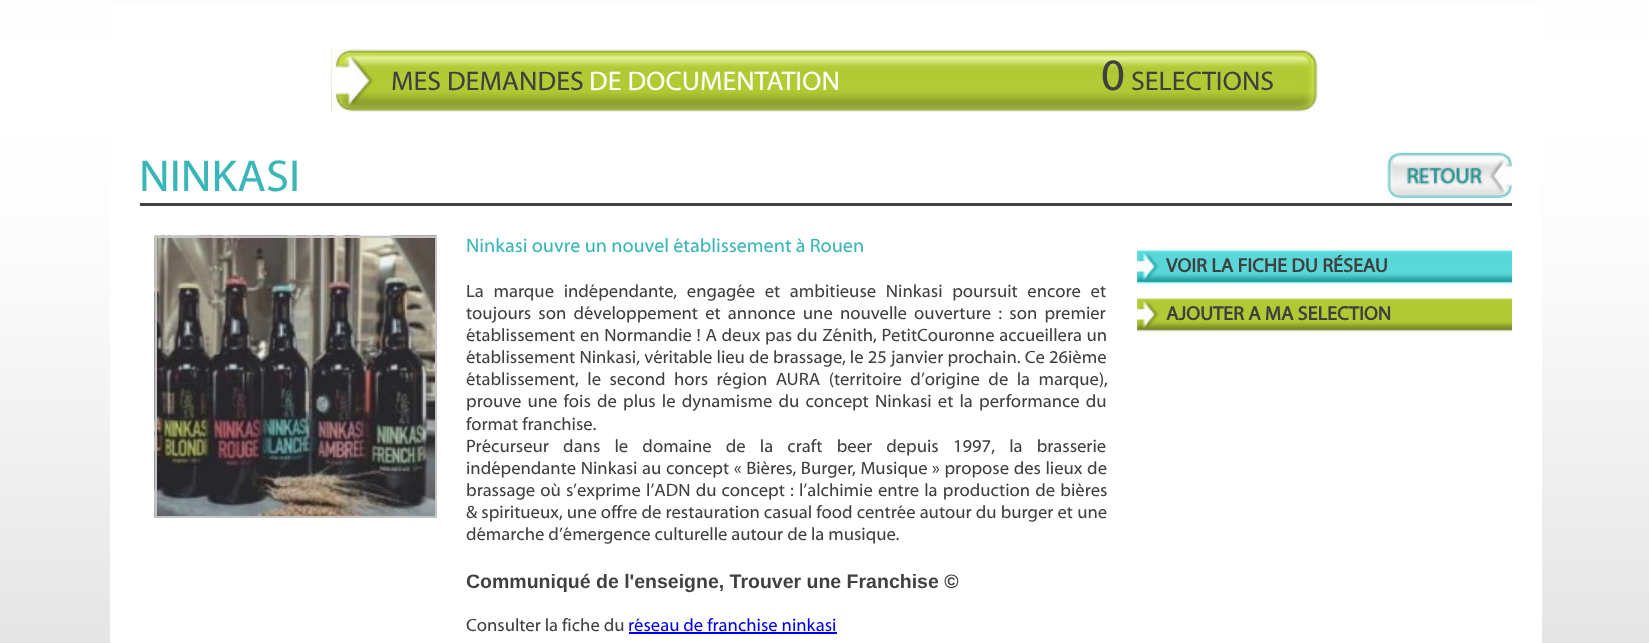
<!DOCTYPE html>
<meta charset="utf-8">
<style>body { margin: 0 } canvas { display: block }</style>
<canvas id="canvas" width="1649" height="643"></canvas>
<img id="img1" src="img_01.png" hidden>
<img id="img2" src="img_02.png" hidden>
<img id="img3" src="img_03.png" hidden>
<img id="img4" src="img_04.png" hidden>
<img id="img5" src="img_05.png" hidden>
<img id="img6" src="img_06.png" hidden>
<img id="img7" src="img_07.png" hidden>
<script>
window.onload = function () {
	const canvas = document.getElementById("canvas");
	const ctx = canvas.getContext("2d");
	ctx.miterLimit = 4;
	ctx.fontKerning = "normal";
	function txt(s, x, y) {
		ctx.fillText(s, x, y);
	}
	function fill(x, y, w, h) {
		ctx.fillRect(x, y, w, h);
	}
	function img(id, x, y, w, h) {
		ctx.drawImage(document.getElementById(id), x, y, w, h);
	}

	ctx.fillStyle = "#FFFFFF";
	fill(0, 0, 1649, 643);
	img("img1", 0, 0, 1649, 643);
	fill(110, 3, 1432, 640);
	img("img2", 331, 49, 988, 63);
	img("img3", 331, 49, 44, 63);
	ctx.fillStyle = "#404040";
	fill(140, 203, 1372, 3);
	img("img4", 1387, 151, 125, 47);
	img("img5", 154, 235, 283, 283);
	ctx.strokeStyle = "#C4C4C4";
	ctx.lineWidth = 2;
	ctx.strokeRect(156, 237, 280, 280);
	ctx.fillStyle = "#0000EE";
	fill(629, 632, 208, 2);
	img("img6", 1137, 250, 375, 34);
	img("img7", 1137, 298, 375, 34);
	ctx.font = "27px Myriad";
	ctx.fillStyle = "#404040";
	txt("MES DEMANDES", 391, 90);
	ctx.fillStyle = "#FFFFFF";
	txt("DE DOCUMENTATION", 589, 90);
	ctx.font = "45px Myriad";
	ctx.fillStyle = "#404040";
	txt("0", 1101, 90);
	ctx.font = "27px Myriad";
	txt("SELECTIONS", 1131, 90);
	ctx.font = "45px Myriad";
	ctx.fillStyle = "#39B6B8";
	txt("NINKASI", 139, 191);
	ctx.font = "19.5px Myriad";
	txt("Ninkasi ouvre un nouvel établissement à Rouen", 466, 252);
	ctx.wordSpacing = "5.75px";
	ctx.font = "18px Myriad";
	ctx.fillStyle = "#404040";
	txt("La marque indépendante, engagée et ambitieuse Ninkasi poursuit encore et", 466, 297);
	ctx.wordSpacing = "3.25px";
	txt("toujours son développement et annonce une nouvelle ouverture : son premier", 466, 319);
	ctx.wordSpacing = "0.75px";
	txt("établissement en Normandie ! A deux pas du Zénith, PetitCouronne accueillera un", 466, 341);
	ctx.wordSpacing = "0.25px";
	txt("établissement Ninkasi, véritable lieu de brassage, le 25 janvier prochain. Ce 26ième", 466, 363);
	ctx.wordSpacing = "4.5px";
	txt("établissement, le second hors région AURA (territoire d’origine de la marque),", 466, 385);
	ctx.wordSpacing = "2.25px";
	txt("prouve une fois de plus le dynamisme du concept Ninkasi et la performance du", 466, 407);
	ctx.wordSpacing = "0px";
	txt("format franchise.", 466, 430);
	ctx.wordSpacing = "10.25px";
	txt("Précurseur dans le domaine de la craft beer depuis 1997, la brasserie", 466, 452);
	ctx.wordSpacing = "0.7px";
	txt("indépendante Ninkasi au concept « Bières, Burger, Musique » propose des lieux de", 466, 474);
	ctx.wordSpacing = "1.25px";
	txt("brassage où s’exprime l’ADN du concept : l’alchimie entre la production de bières", 466, 496);
	ctx.wordSpacing = "0.2px";
	txt("& spiritueux, une offre de restauration casual food centrée autour du burger et une", 466, 518);
	ctx.wordSpacing = "0px";
	txt("démarche d’émergence culturelle autour de la musique.", 466, 540);
	ctx.font = "bold 19.5px Liberation Sans";
	txt("Communiqué de l'enseigne, Trouver une Franchise ©", 466, 588);
	ctx.font = "18px Myriad";
	txt("Consulter la fiche du", 466, 631);
	ctx.fillStyle = "#0000EE";
	txt("réseau de franchise ninkasi", 628, 631);
	ctx.font = "bold 19.5px Myriad";
	ctx.fillStyle = "#404040";
	txt("VOIR LA FICHE DU RÉSEAU", 1166, 272);
	txt("AJOUTER A MA SELECTION", 1166, 320);
};
</script>
